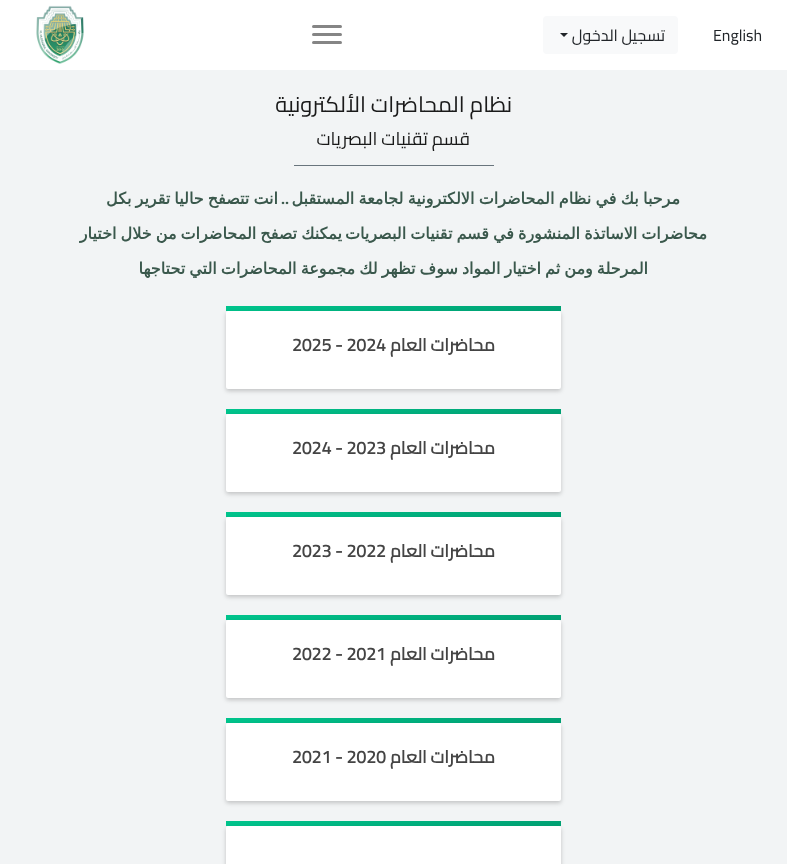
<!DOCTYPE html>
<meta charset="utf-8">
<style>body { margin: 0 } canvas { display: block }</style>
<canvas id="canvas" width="787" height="864"></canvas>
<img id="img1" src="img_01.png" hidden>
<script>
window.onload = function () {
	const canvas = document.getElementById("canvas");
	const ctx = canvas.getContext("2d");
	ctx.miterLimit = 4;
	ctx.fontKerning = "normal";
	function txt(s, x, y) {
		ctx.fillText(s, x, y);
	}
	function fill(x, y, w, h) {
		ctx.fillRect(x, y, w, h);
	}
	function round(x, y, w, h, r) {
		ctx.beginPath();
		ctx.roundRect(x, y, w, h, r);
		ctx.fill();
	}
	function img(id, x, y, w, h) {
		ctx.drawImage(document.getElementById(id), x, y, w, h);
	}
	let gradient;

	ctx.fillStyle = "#F2F4F5";
	fill(0, 0, 787, 864);
	ctx.fillStyle = "#FFFFFF";
	fill(0, 0, 787, 70);
	ctx.fillStyle = "#F8F9FA";
	round(543, 16, 135, 38, 4);
	ctx.fillStyle = "#212529";
	ctx.beginPath();
	ctx.moveTo(560, 33);
	ctx.lineTo(568, 33);
	ctx.lineTo(564, 37);
	ctx.closePath();
	ctx.fill();
	ctx.fillStyle = "#858585";
	round(312, 25, 30, 3, 1.5);
	round(312, 33, 30, 3, 1.5);
	round(312, 41, 30, 3, 1.5);
	img("img1", 36, 5, 48, 59);
	ctx.fillStyle = "#69757D";
	fill(294, 165, 200, 1);
	gradient = ctx.createLinearGradient(228, 330, 559, 287);
	gradient.addColorStop(0, "#00C48C");
	gradient.addColorStop(1, "#00A173");
	ctx.fillStyle = gradient;
	fill(226, 306, 335, 5);
	ctx.fillStyle = "rgba(0, 0, 0, 0.2)";
	ctx.filter = "blur(2px)";
	ctx.beginPath();
	ctx.roundRect(226, 313, 335, 78, 2);
	ctx.fill();
	ctx.filter = "none";
	ctx.fillStyle = "#FFFFFF";
	round(226, 311, 335, 78, 2);
	gradient = ctx.createLinearGradient(228, 433, 559, 390);
	gradient.addColorStop(0, "#00C48C");
	gradient.addColorStop(1, "#00A173");
	ctx.fillStyle = gradient;
	fill(226, 409, 335, 5);
	ctx.fillStyle = "rgba(0, 0, 0, 0.2)";
	ctx.filter = "blur(2px)";
	ctx.beginPath();
	ctx.roundRect(226, 416, 335, 78, 2);
	ctx.fill();
	ctx.filter = "none";
	ctx.fillStyle = "#FFFFFF";
	round(226, 414, 335, 78, 2);
	gradient = ctx.createLinearGradient(228, 536, 559, 493);
	gradient.addColorStop(0, "#00C48C");
	gradient.addColorStop(1, "#00A173");
	ctx.fillStyle = gradient;
	fill(226, 512, 335, 5);
	ctx.fillStyle = "rgba(0, 0, 0, 0.2)";
	ctx.filter = "blur(2px)";
	ctx.beginPath();
	ctx.roundRect(226, 519, 335, 78, 2);
	ctx.fill();
	ctx.filter = "none";
	ctx.fillStyle = "#FFFFFF";
	round(226, 517, 335, 78, 2);
	gradient = ctx.createLinearGradient(228, 639, 559, 596);
	gradient.addColorStop(0, "#00C48C");
	gradient.addColorStop(1, "#00A173");
	ctx.fillStyle = gradient;
	fill(226, 615, 335, 5);
	ctx.fillStyle = "rgba(0, 0, 0, 0.2)";
	ctx.filter = "blur(2px)";
	ctx.beginPath();
	ctx.roundRect(226, 622, 335, 78, 2);
	ctx.fill();
	ctx.filter = "none";
	ctx.fillStyle = "#FFFFFF";
	round(226, 620, 335, 78, 2);
	gradient = ctx.createLinearGradient(228, 742, 559, 699);
	gradient.addColorStop(0, "#00C48C");
	gradient.addColorStop(1, "#00A173");
	ctx.fillStyle = gradient;
	fill(226, 718, 335, 5);
	ctx.fillStyle = "rgba(0, 0, 0, 0.2)";
	ctx.filter = "blur(2px)";
	ctx.beginPath();
	ctx.roundRect(226, 725, 335, 78, 2);
	ctx.fill();
	ctx.filter = "none";
	ctx.fillStyle = "#FFFFFF";
	round(226, 723, 335, 78, 2);
	gradient = ctx.createLinearGradient(228, 845, 559, 802);
	gradient.addColorStop(0, "#00C48C");
	gradient.addColorStop(1, "#00A173");
	ctx.fillStyle = gradient;
	fill(226, 821, 335, 5);
	ctx.fillStyle = "rgba(0, 0, 0, 0.2)";
	ctx.filter = "blur(2px)";
	ctx.beginPath();
	ctx.roundRect(226, 828, 335, 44, 2);
	ctx.fill();
	ctx.filter = "none";
	ctx.fillStyle = "#FFFFFF";
	round(226, 826, 335, 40, 2);
	ctx.font = "16px Cairo";
	ctx.fillStyle = "#212529";
	txt("English", 713, 41);
	ctx.direction = "rtl";
	txt("تسجيل الدخول", 665, 41);
	ctx.font = "22px Cairo";
	ctx.fillStyle = "#1A1A1A";
	txt("نظام المحاضرات الألكترونية", 512, 112);
	ctx.font = "18px Cairo";
	txt("قسم تقنيات البصريات", 470, 145);
	ctx.wordSpacing = "-0.75px";
	ctx.font = "bold 16px DejaVu Sans";
	ctx.fillStyle = "#3A584C";
	txt("مرحبا بك في نظام المحاضرات الالكترونية لجامعة المستقبل", 680, 204);
	ctx.wordSpacing = "0px";
	ctx.font = "bold 16px Liberation Serif";
	txt("..", 289, 204);
	ctx.wordSpacing = "-1px";
	ctx.font = "bold 16px DejaVu Sans";
	txt("انت تتصفح حاليا تقرير بكل", 278, 204);
	txt("محاضرات الاساتذة المنشورة في", 707, 239);
	txt("قسم تقنيات البصريات", 489, 239);
	txt("يمكنك تصفح المحاضرات من خلال اختيار", 342, 239);
	txt("المرحلة ومن ثم اختيار المواد سوف تظهر لك مجموعة المحاضرات التي تحتاجها", 648, 274);
	ctx.wordSpacing = "0px";
	ctx.font = "bold 17.5px Cairo";
	ctx.fillStyle = "#444444";
	txt("محاضرات العام", 495, 351);
	ctx.direction = "ltr";
	txt("2025 - 2024", 292, 351);
	ctx.direction = "rtl";
	txt("محاضرات العام", 495, 454);
	ctx.direction = "ltr";
	txt("2024 - 2023", 292, 454);
	ctx.direction = "rtl";
	txt("محاضرات العام", 495, 557);
	ctx.direction = "ltr";
	txt("2023 - 2022", 292, 557);
	ctx.direction = "rtl";
	txt("محاضرات العام", 495, 660);
	ctx.direction = "ltr";
	txt("2022 - 2021", 292, 660);
	ctx.direction = "rtl";
	txt("محاضرات العام", 495, 763);
	ctx.direction = "ltr";
	txt("2021 - 2020", 292, 763);
};
</script>
